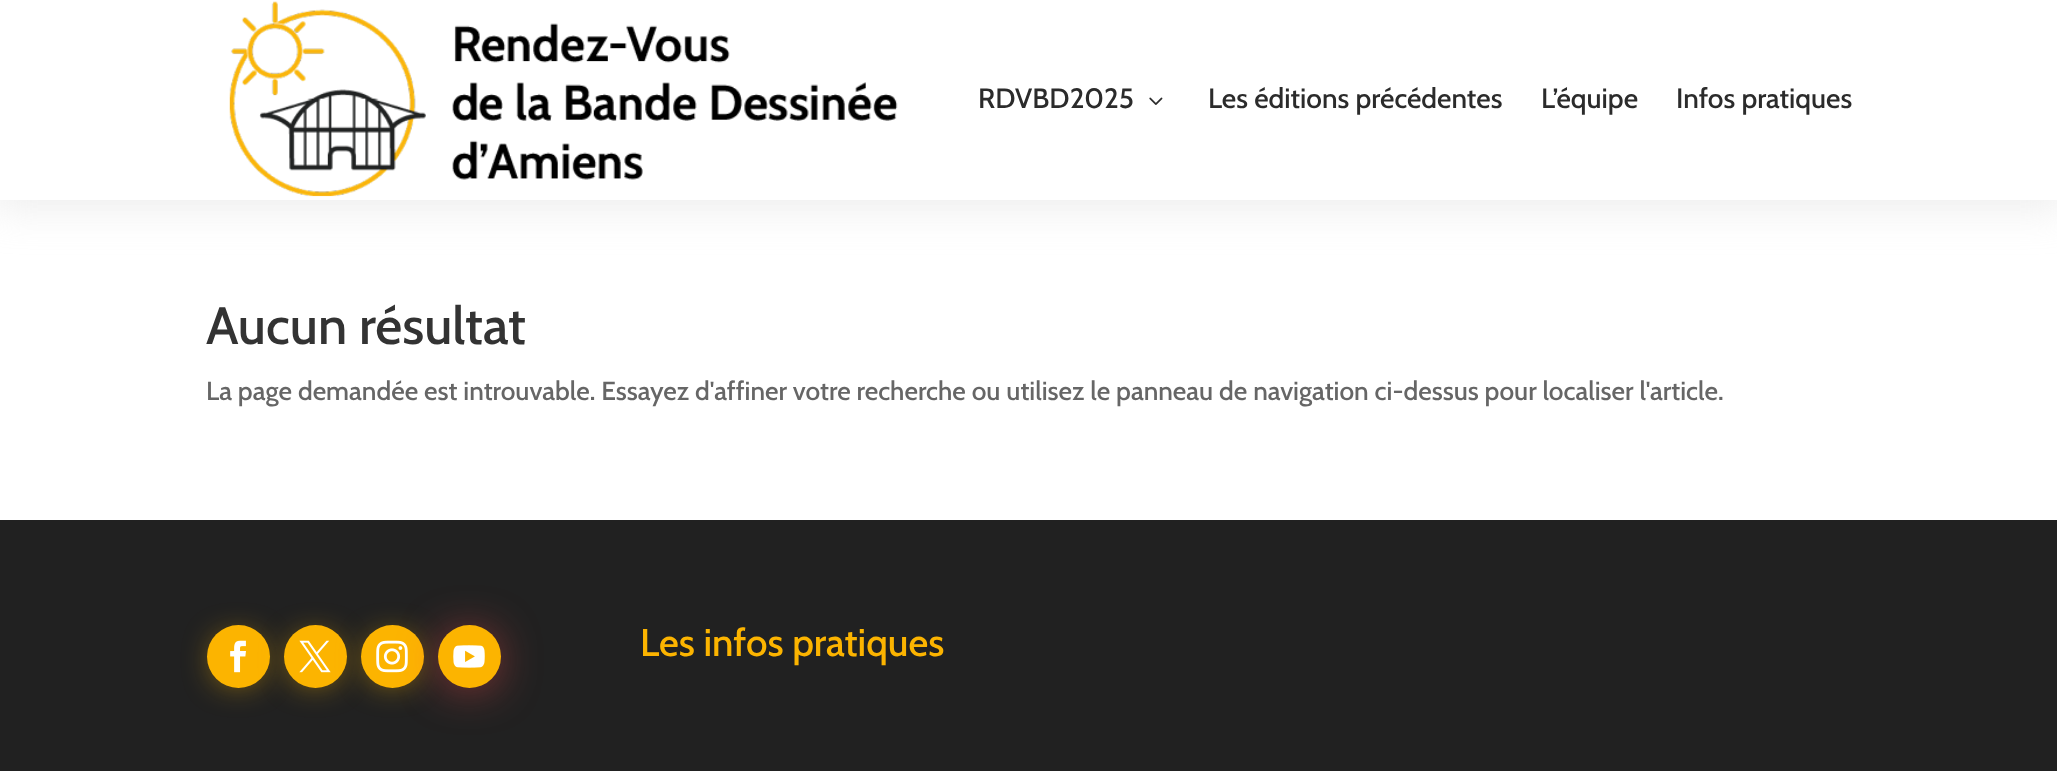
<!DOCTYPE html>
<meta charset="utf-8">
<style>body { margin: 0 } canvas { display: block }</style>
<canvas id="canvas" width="2057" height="771"></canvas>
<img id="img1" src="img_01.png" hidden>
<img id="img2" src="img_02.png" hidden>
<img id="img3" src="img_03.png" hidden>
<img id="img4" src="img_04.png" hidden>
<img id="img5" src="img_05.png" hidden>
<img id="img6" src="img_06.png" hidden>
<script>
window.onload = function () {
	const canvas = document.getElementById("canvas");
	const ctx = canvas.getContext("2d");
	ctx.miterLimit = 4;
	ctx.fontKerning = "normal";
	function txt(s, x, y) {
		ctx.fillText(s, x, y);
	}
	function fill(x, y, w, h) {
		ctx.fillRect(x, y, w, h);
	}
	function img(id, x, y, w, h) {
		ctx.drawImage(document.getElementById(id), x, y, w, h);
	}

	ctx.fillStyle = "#FFFFFF";
	fill(0, 0, 2057, 771);
	ctx.fillStyle = "rgba(214, 214, 214, 0.44)";
	ctx.filter = "blur(21px)";
	ctx.beginPath();
	ctx.rect(-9, -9, 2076, 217);
	ctx.fill();
	ctx.filter = "none";
	ctx.fillStyle = "#FFFFFF";
	fill(0, 0, 2057, 200);
	img("img1", 229, 1, 669, 196);
	img("img2", 1149, 97, 14, 8);
	ctx.fillStyle = "#212121";
	fill(0, 520, 2057, 251);
	ctx.fillStyle = "#FCB400";
	ctx.filter = "blur(17.5px)";
	ctx.beginPath();
	ctx.roundRect(219, 641, 38, 38, 19);
	ctx.fill();
	ctx.filter = "none";
	ctx.beginPath();
	ctx.arc(238.5, 656.5, 31.5, 0, Math.PI * 2);
	ctx.fill();
	ctx.filter = "blur(17.5px)";
	ctx.beginPath();
	ctx.roundRect(296, 641, 38, 38, 19);
	ctx.fill();
	ctx.filter = "none";
	img("img3", 230, 640, 16, 33);
	ctx.beginPath();
	ctx.arc(315.5, 656.5, 31.5, 0, Math.PI * 2);
	ctx.fill();
	ctx.filter = "blur(17.5px)";
	ctx.beginPath();
	ctx.roundRect(373, 641, 38, 38, 19);
	ctx.fill();
	ctx.filter = "none";
	img("img4", 299, 640, 32, 33);
	ctx.beginPath();
	ctx.arc(392.5, 656.5, 31.5, 0, Math.PI * 2);
	ctx.fill();
	ctx.fillStyle = "#FF4F4F";
	ctx.filter = "blur(24.5px)";
	ctx.beginPath();
	ctx.roundRect(448, 639, 42, 42, 21);
	ctx.fill();
	ctx.filter = "none";
	ctx.fillStyle = "#FCB400";
	ctx.beginPath();
	ctx.arc(469.5, 656.5, 31.5, 0, Math.PI * 2);
	ctx.fill();
	img("img5", 453, 645, 32, 23);
	img("img6", 376, 640, 32, 33);
	ctx.font = "500 28px Cabin";
	ctx.fillStyle = "#2B2B2B";
	txt("RDVBD2025", 978, 108);
	txt("Les éditions précédentes", 1208, 108);
	txt("L’équipe", 1541, 108);
	txt("Infos pratiques", 1676, 108);
	ctx.font = "500 52.5px Cabin";
	ctx.fillStyle = "#333333";
	txt("Aucun résultat", 206, 344);
	ctx.font = "500 26.25px Cabin";
	ctx.fillStyle = "#666666";
	txt("La page demandée est introuvable. Essayez d'affiner votre recherche ou utilisez le panneau de navigation ci-dessus pour localiser l'article.", 206, 400);
	ctx.font = "500 38.5px Cabin";
	ctx.fillStyle = "#FCB400";
	txt("Les infos pratiques", 640, 656);
};
</script>
